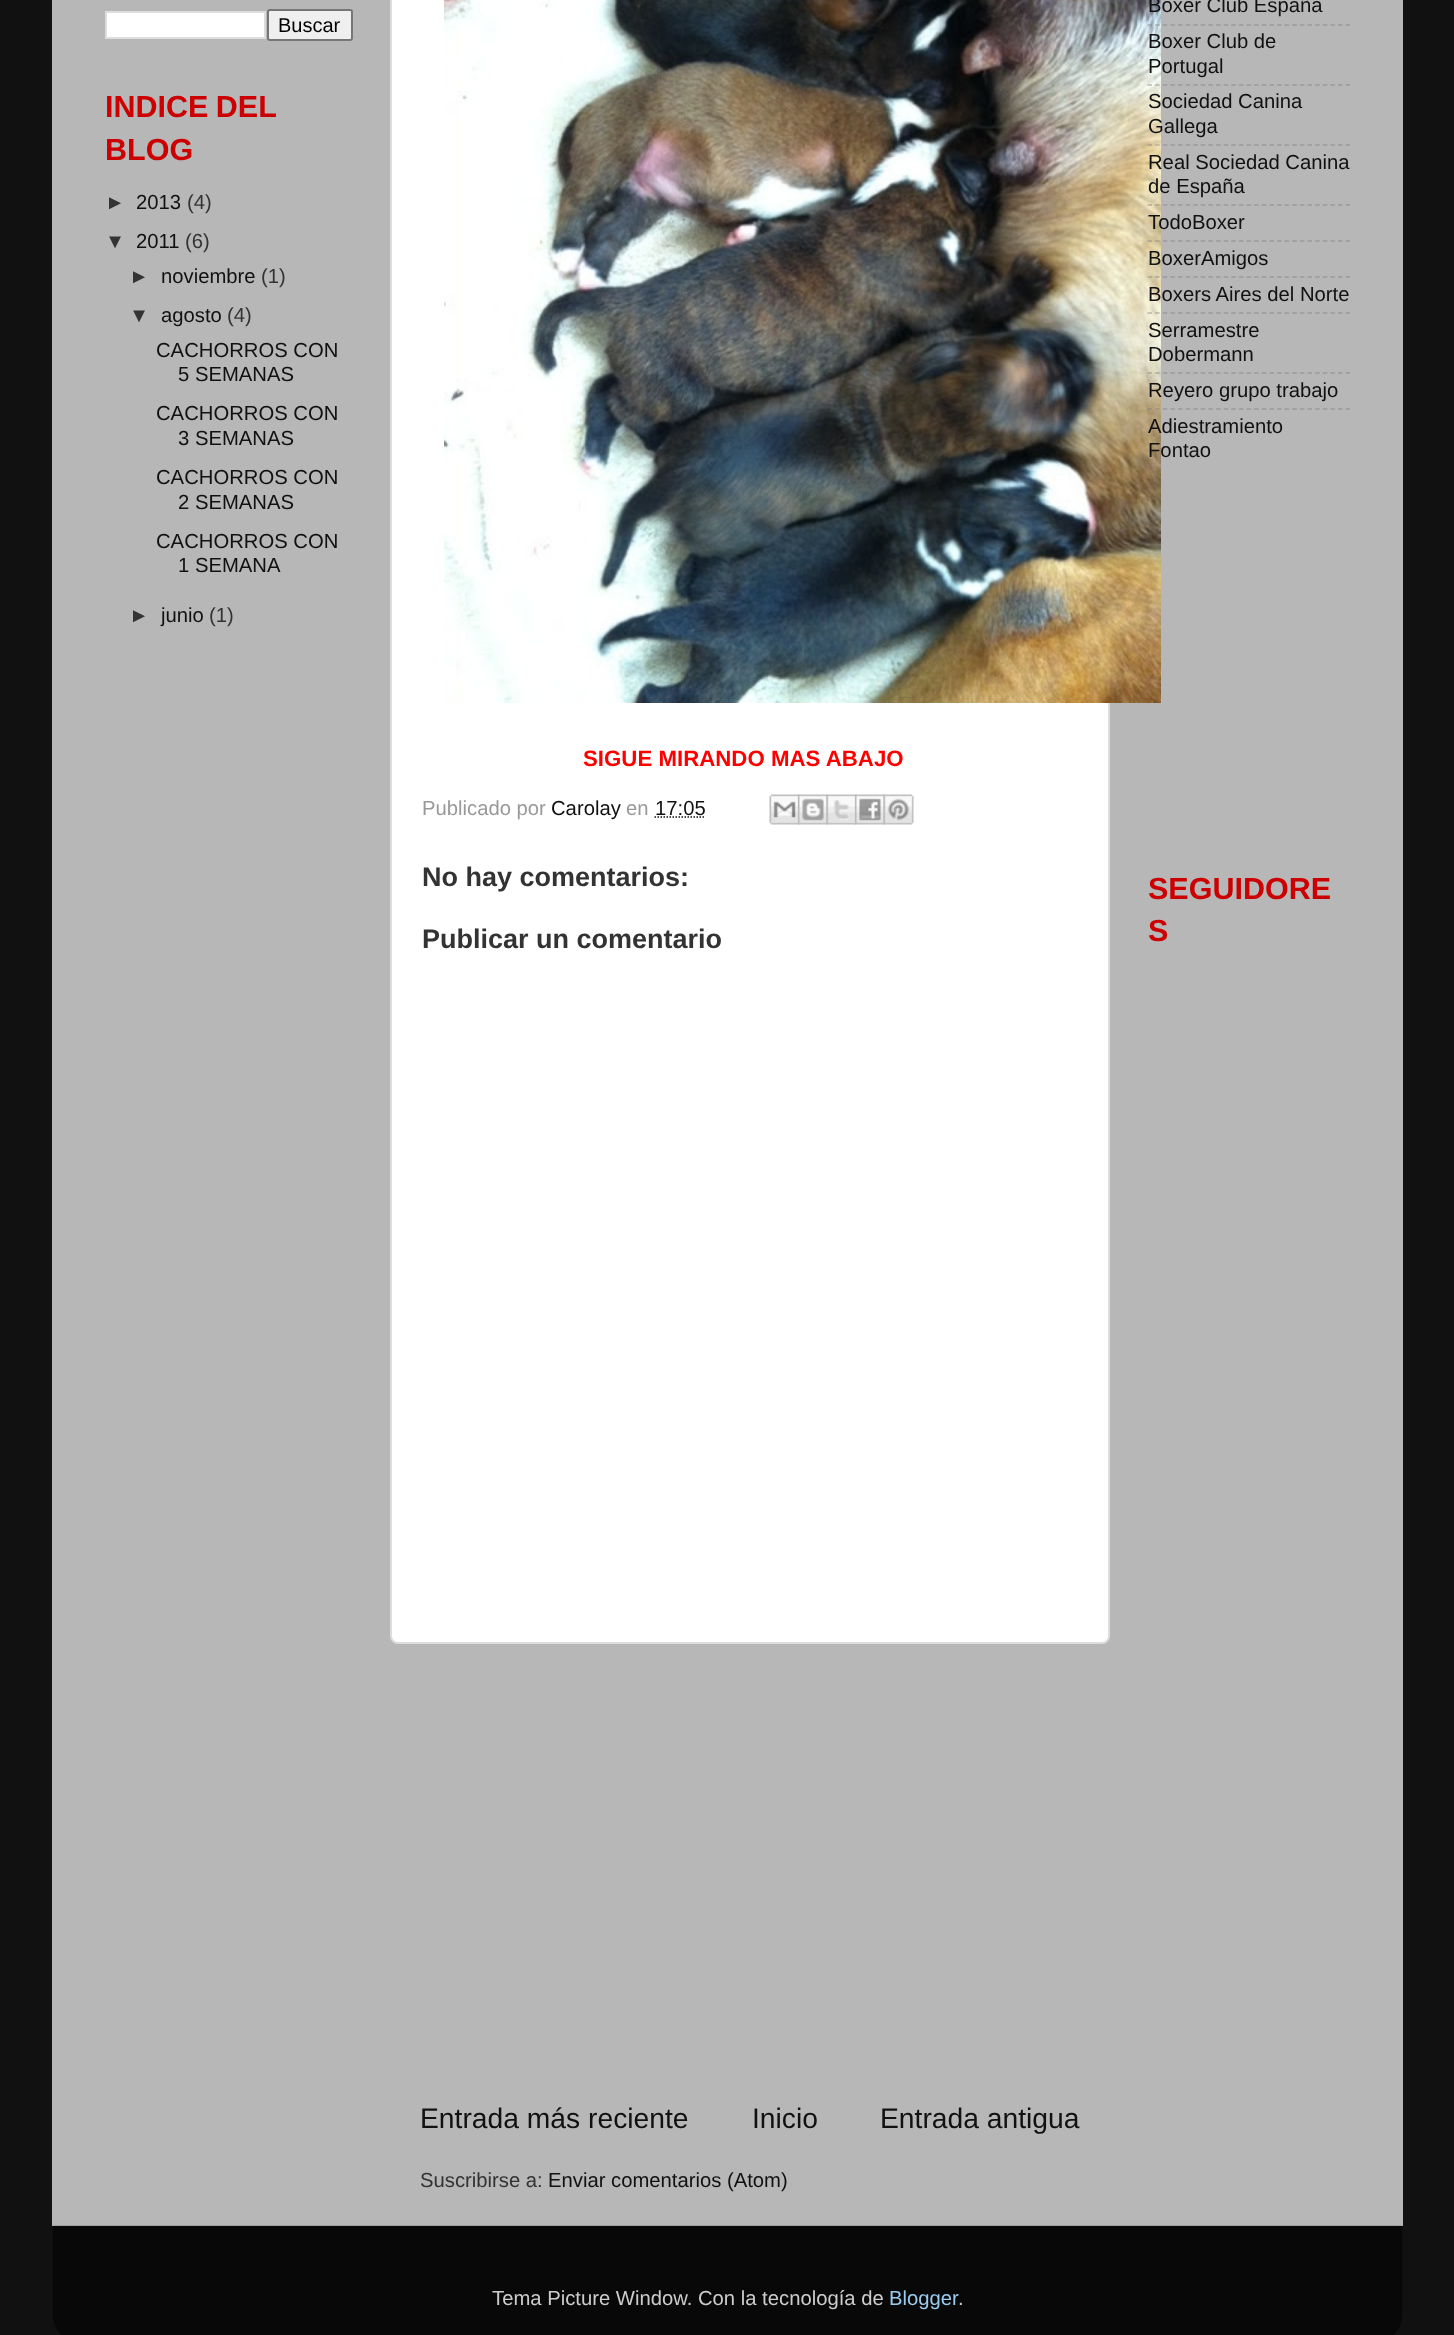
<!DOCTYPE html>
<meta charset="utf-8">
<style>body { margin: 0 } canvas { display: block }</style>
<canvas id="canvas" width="1454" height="2335"></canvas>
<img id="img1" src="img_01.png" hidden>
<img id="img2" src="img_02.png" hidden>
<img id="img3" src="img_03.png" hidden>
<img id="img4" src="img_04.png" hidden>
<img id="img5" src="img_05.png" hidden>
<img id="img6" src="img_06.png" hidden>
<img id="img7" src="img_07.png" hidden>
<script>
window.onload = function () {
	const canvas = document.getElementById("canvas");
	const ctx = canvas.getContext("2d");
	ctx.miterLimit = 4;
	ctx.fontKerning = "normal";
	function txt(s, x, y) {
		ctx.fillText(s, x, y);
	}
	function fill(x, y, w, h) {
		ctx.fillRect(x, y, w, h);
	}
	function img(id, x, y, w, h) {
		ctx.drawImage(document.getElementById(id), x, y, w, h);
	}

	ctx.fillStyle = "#111111";
	fill(0, 0, 1454, 2335);
	ctx.fillStyle = "#B7B7B7";
	fill(52, 0, 1351, 2226);
	ctx.fillStyle = "#FFFFFF";
	ctx.beginPath();
	ctx.rect(106, 12, 159, 26);
	ctx.fill();
	ctx.strokeStyle = "#DDDDDD";
	ctx.lineWidth = 2;
	ctx.stroke();
	ctx.fillStyle = "#EFEFEF";
	ctx.beginPath();
	ctx.roundRect(268, 10, 84, 30, 2);
	ctx.fill();
	ctx.strokeStyle = "#767676";
	ctx.stroke();
	ctx.fillStyle = "#FFFFFF";
	ctx.beginPath();
	ctx.roundRect(391, -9, 718, 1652, 7);
	ctx.fill();
	ctx.strokeStyle = "#DDDDDD";
	ctx.stroke();
	img("img1", 444, 0, 717, 703);
	ctx.beginPath();
	ctx.moveTo(1147.5, 25);
	ctx.lineTo(1350, 25);
	ctx.strokeStyle = "rgba(128, 128, 128, 0.5)";
	ctx.lineWidth = 1.5;
	ctx.setLineDash([4.5, 3.12]);
	ctx.stroke();
	ctx.beginPath();
	ctx.moveTo(1147.5, 85);
	ctx.lineTo(1350, 85);
	ctx.stroke();
	ctx.beginPath();
	ctx.moveTo(1147.5, 145);
	ctx.lineTo(1350, 145);
	ctx.stroke();
	ctx.beginPath();
	ctx.moveTo(1147.5, 205);
	ctx.lineTo(1350, 205);
	ctx.stroke();
	ctx.beginPath();
	ctx.moveTo(1147.5, 241);
	ctx.lineTo(1350, 241);
	ctx.stroke();
	ctx.beginPath();
	ctx.moveTo(1147.5, 277);
	ctx.lineTo(1350, 277);
	ctx.stroke();
	ctx.beginPath();
	ctx.moveTo(1147.5, 313);
	ctx.lineTo(1350, 313);
	ctx.stroke();
	ctx.beginPath();
	ctx.moveTo(1147.5, 373);
	ctx.lineTo(1350, 373);
	ctx.stroke();
	ctx.beginPath();
	ctx.moveTo(1147.5, 409);
	ctx.lineTo(1350, 409);
	ctx.stroke();
	ctx.beginPath();
	ctx.moveTo(654.5, 817);
	ctx.lineTo(705.5, 817);
	ctx.strokeStyle = "#111111";
	ctx.setLineDash([1.5, 1.5]);
	ctx.stroke();
	img("img2", 769, 794, 31, 31);
	img("img3", 798, 794, 30, 31);
	img("img4", 826, 794, 31, 31);
	img("img5", 855, 794, 30, 31);
	img("img6", 883, 794, 31, 31);
	img("img7", 52, 2225, 1351, 110);
	ctx.font = "20px Liberation Sans";
	ctx.fillStyle = "#000000";
	txt("Buscar", 278, 32);
	ctx.wordSpacing = "-1px";
	ctx.font = "bold 30.5px Liberation Sans";
	ctx.fillStyle = "#CC0000";
	txt("INDICE DEL", 105, 117);
	ctx.wordSpacing = "0px";
	txt("BLOG", 105, 160);
	ctx.font = "20.25px Liberation Sans";
	ctx.fillStyle = "#333333";
	txt("►", 105, 209);
	ctx.fillStyle = "#111111";
	txt("2013", 136, 209);
	ctx.fillStyle = "#333333";
	txt("(4)", 187, 209);
	txt("▼", 105, 248);
	ctx.fillStyle = "#111111";
	txt("2011", 136, 248);
	ctx.fillStyle = "#333333";
	txt("(6)", 185, 248);
	txt("►", 129, 283);
	ctx.fillStyle = "#111111";
	txt("noviembre", 161, 283);
	ctx.fillStyle = "#333333";
	txt("(1)", 261, 283);
	txt("▼", 129, 322);
	ctx.fillStyle = "#111111";
	txt("agosto", 161, 322);
	ctx.fillStyle = "#333333";
	txt("(4)", 227, 322);
	ctx.fillStyle = "#111111";
	txt("CACHORROS CON", 156, 357);
	txt("5 SEMANAS", 178, 381);
	txt("CACHORROS CON", 156, 420);
	txt("3 SEMANAS", 178, 445);
	txt("CACHORROS CON", 156, 484);
	txt("2 SEMANAS", 178, 509);
	txt("CACHORROS CON", 156, 548);
	txt("1 SEMANA", 178, 572);
	ctx.fillStyle = "#333333";
	txt("►", 129, 622);
	ctx.fillStyle = "#111111";
	txt("junio", 161, 622);
	ctx.fillStyle = "#333333";
	txt("(1)", 209, 622);
	ctx.fillStyle = "#111111";
	txt("Boxer Club España", 1148, 12);
	txt("Boxer Club de", 1148, 48);
	txt("Portugal", 1148, 73);
	txt("Sociedad Canina", 1148, 108);
	txt("Gallega", 1148, 133);
	txt("Real Sociedad Canina", 1148, 169);
	txt("de España", 1148, 193);
	txt("TodoBoxer", 1148, 229);
	txt("BoxerAmigos", 1148, 265);
	txt("Boxers Aires del Norte", 1148, 301);
	txt("Serramestre", 1148, 337);
	txt("Dobermann", 1148, 361);
	txt("Reyero grupo trabajo", 1148, 397);
	txt("Adiestramiento", 1148, 433);
	txt("Fontao", 1148, 457);
	ctx.font = "bold 30.5px Liberation Sans";
	ctx.fillStyle = "#CC0000";
	txt("SEGUIDORE", 1148, 899);
	txt("S", 1148, 941);
	ctx.font = "bold 22.25px Liberation Sans";
	ctx.fillStyle = "#FF0000";
	txt("SIGUE MIRANDO MAS ABAJO", 583, 766);
	ctx.font = "20.25px Liberation Sans";
	ctx.fillStyle = "#999999";
	txt("Publicado por", 422, 815);
	ctx.fillStyle = "#111111";
	txt("Carolay", 551, 815);
	ctx.fillStyle = "#999999";
	txt("en", 626, 815);
	ctx.fillStyle = "#111111";
	txt("17:05", 655, 815);
	ctx.font = "bold 27px Liberation Sans";
	ctx.fillStyle = "#333333";
	txt("No hay comentarios:", 422, 886);
	txt("Publicar un comentario", 422, 948);
	ctx.font = "28.25px Liberation Sans";
	ctx.fillStyle = "#111111";
	txt("Entrada más reciente", 420, 2128);
	txt("Inicio", 752, 2128);
	txt("Entrada antigua", 880, 2128);
	ctx.font = "20.25px Liberation Sans";
	ctx.fillStyle = "#333333";
	txt("Suscribirse a:", 420, 2187);
	ctx.fillStyle = "#111111";
	txt("Enviar comentarios (Atom)", 548, 2187);
	ctx.fillStyle = "#CCCCCC";
	txt("Tema Picture Window. Con la tecnología de", 492, 2305);
	ctx.fillStyle = "#99CCEE";
	txt("Blogger", 889, 2305);
	ctx.fillStyle = "#CCCCCC";
	txt(".", 958, 2305);
};
</script>
